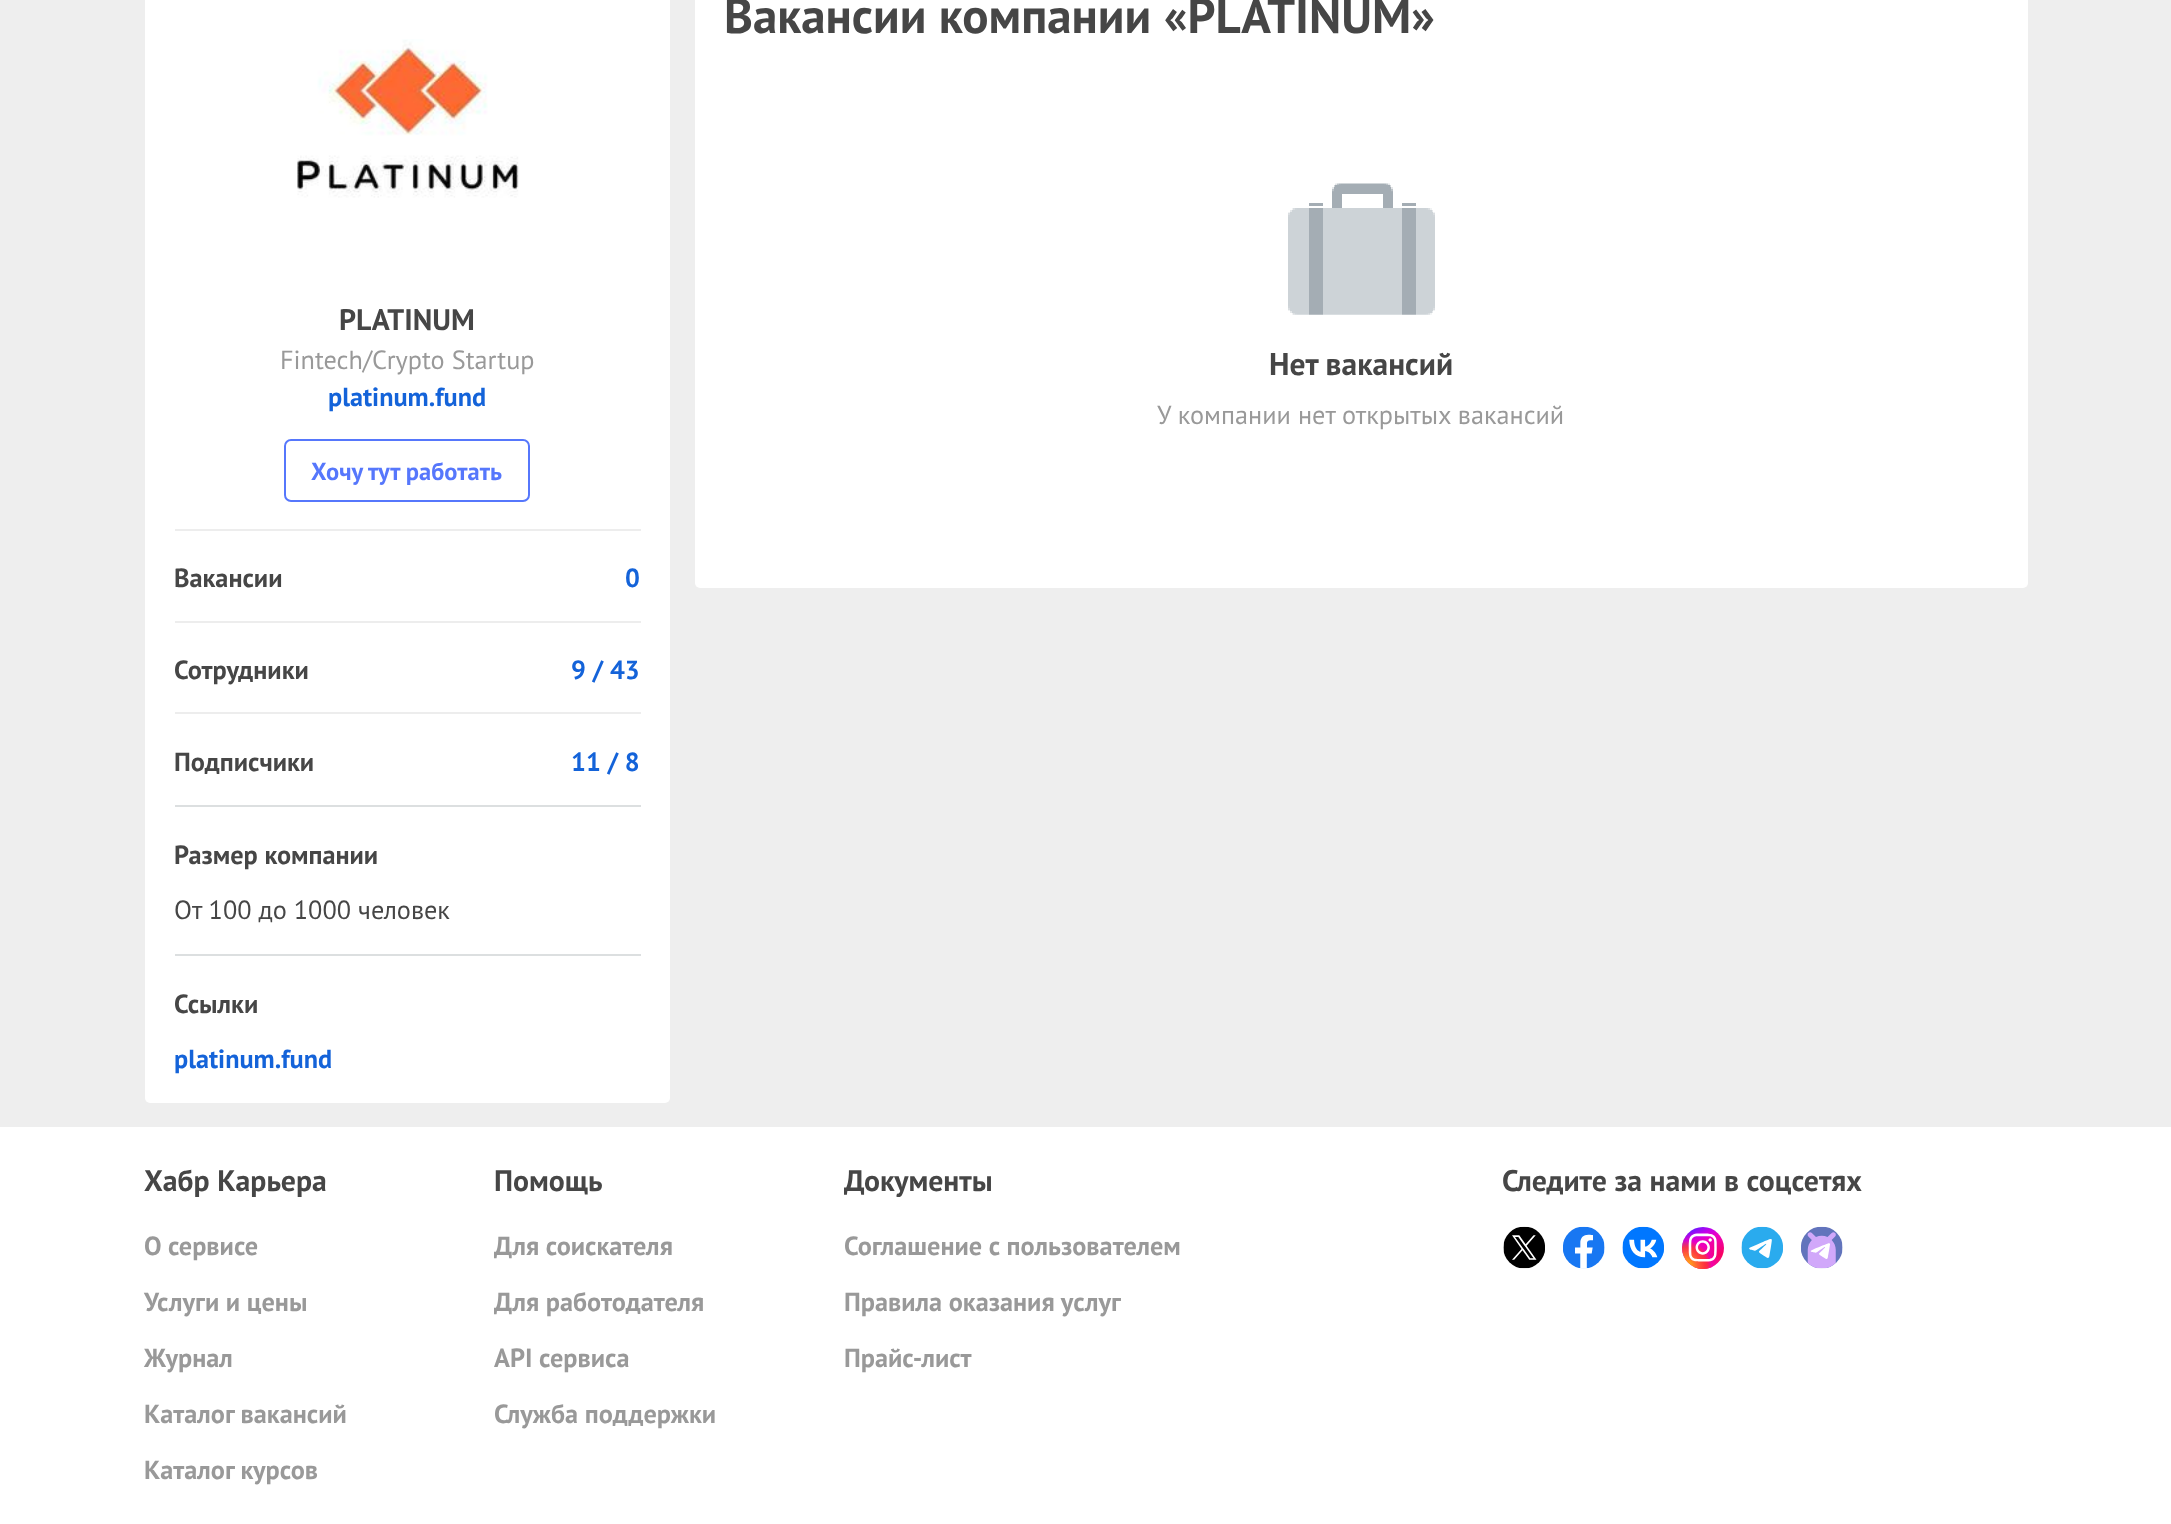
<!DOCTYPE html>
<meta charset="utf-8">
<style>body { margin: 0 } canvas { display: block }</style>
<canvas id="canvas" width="2171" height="1524"></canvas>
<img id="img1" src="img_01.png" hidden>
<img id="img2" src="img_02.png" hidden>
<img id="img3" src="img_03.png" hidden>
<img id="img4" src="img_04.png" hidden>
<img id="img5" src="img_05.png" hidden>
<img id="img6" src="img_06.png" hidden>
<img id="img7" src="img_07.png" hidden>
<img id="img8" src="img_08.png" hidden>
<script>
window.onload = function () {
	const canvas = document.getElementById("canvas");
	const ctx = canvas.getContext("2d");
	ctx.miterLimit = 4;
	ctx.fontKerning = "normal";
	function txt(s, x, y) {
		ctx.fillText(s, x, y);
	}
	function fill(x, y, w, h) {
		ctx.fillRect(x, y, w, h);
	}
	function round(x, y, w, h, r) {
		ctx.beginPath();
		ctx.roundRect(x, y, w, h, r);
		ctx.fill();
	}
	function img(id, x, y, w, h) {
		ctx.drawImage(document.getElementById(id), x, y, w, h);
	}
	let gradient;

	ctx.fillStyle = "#EEEEEE";
	fill(0, 0, 2171, 1524);
	ctx.fillStyle = "#FFFFFF";
	round(695, -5, 1333, 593, 5);
	img("img1", 1288, 183, 147, 132);
	round(145, -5, 525, 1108, 5);
	img("img2", 297, 39, 222, 159);
	ctx.beginPath();
	ctx.roundRect(285, 440, 244, 61, 6);
	ctx.strokeStyle = "#5677FC";
	ctx.lineWidth = 2;
	ctx.stroke();
	ctx.fillStyle = "#EDEDED";
	fill(175, 529, 466, 2);
	fill(175, 621, 466, 2);
	fill(175, 712, 466, 2);
	ctx.fillStyle = "#DCDFE0";
	fill(175, 805, 466, 2);
	fill(175, 954, 466, 2);
	ctx.fillStyle = "#FFFFFF";
	fill(0, 1127, 2171, 397);
	img("img3", 1503, 1226, 42, 43);
	img("img4", 1563, 1226, 42, 43);
	img("img5", 1622, 1226, 42, 43);
	gradient = ctx.createRadialGradient(1732, 1287, 0, 1732, 1287, 78);
	gradient.addColorStop(0.24, "#FF1B90");
	gradient.addColorStop(0.44, "#F80261");
	gradient.addColorStop(0.69, "#ED00C0");
	gradient.addColorStop(0.78, "#C500E9");
	gradient.addColorStop(0.89, "#7017FF");
	ctx.fillStyle = gradient;
	ctx.beginPath();
	ctx.arc(1703, 1248, 21, 0, Math.PI * 2);
	ctx.fill();
	gradient = ctx.createRadialGradient(1685, 1267, 0, 1685, 1267, 36);
	gradient.addColorStop(0, "#FFD600");
	gradient.addColorStop(0.32, "#FF6930");
	gradient.addColorStop(0.54, "rgba(254, 59, 54, 0.88)");
	gradient.addColorStop(0.62, "rgba(254, 59, 54, 0.63)");
	gradient.addColorStop(0.74, "rgba(237, 0, 192, 0.7)");
	gradient.addColorStop(1, "rgba(237, 0, 192, 0)");
	ctx.fillStyle = gradient;
	ctx.beginPath();
	ctx.arc(1703, 1248, 21, 0, Math.PI * 2);
	ctx.fill();
	img("img6", 1688, 1233, 29, 29);
	img("img7", 1741, 1226, 42, 43);
	img("img8", 1801, 1226, 42, 43);
	ctx.font = "bold 49px PT Sans";
	ctx.fillStyle = "#464646";
	txt("Вакансии компании «PLATINUM»", 724, 33);
	ctx.font = "bold 31.5px PT Sans";
	txt("Нет вакансий", 1269, 375);
	ctx.font = "26.25px PT Sans";
	ctx.fillStyle = "#999999";
	txt("У компании нет открытых вакансий", 1157, 424);
	ctx.font = "bold 29.75px PT Sans";
	ctx.fillStyle = "#464646";
	txt("PLATINUM", 339, 330);
	ctx.font = "26.25px PT Sans";
	ctx.fillStyle = "#999999";
	txt("Fintech/Crypto Startup", 280, 369);
	ctx.font = "bold 26.25px PT Sans";
	ctx.fillStyle = "#1463D9";
	txt("platinum.fund", 328, 406);
	ctx.font = "bold 24.5px PT Sans";
	ctx.fillStyle = "#5677FC";
	txt("Хочу тут работать", 311, 480);
	ctx.font = "bold 26.25px PT Sans";
	ctx.fillStyle = "#464646";
	txt("Вакансии", 174, 587);
	ctx.fillStyle = "#1463D9";
	txt("0", 625, 587);
	ctx.fillStyle = "#464646";
	txt("Сотрудники", 174, 679);
	ctx.fillStyle = "#1463D9";
	txt("9 / 43", 571, 679);
	ctx.fillStyle = "#464646";
	txt("Подписчики", 174, 771);
	ctx.fillStyle = "#1463D9";
	txt("11 / 8", 571, 771);
	ctx.fillStyle = "#464646";
	txt("Размер компании", 174, 864);
	ctx.font = "26.25px PT Sans";
	txt("От 100 до 1000 человек", 174, 919);
	ctx.font = "bold 26.25px PT Sans";
	txt("Ссылки", 174, 1013);
	ctx.fillStyle = "#1463D9";
	txt("platinum.fund", 174, 1068);
	ctx.font = "bold 29.75px PT Sans";
	ctx.fillStyle = "#464646";
	txt("Хабр Карьера", 144, 1191);
	ctx.font = "bold 26.25px PT Sans";
	ctx.fillStyle = "#999999";
	txt("О сервисе", 144, 1255);
	txt("Услуги и цены", 144, 1311);
	txt("Журнал", 144, 1367);
	txt("Каталог вакансий", 144, 1423);
	txt("Каталог курсов", 144, 1479);
	ctx.font = "bold 29.75px PT Sans";
	ctx.fillStyle = "#464646";
	txt("Помощь", 494, 1191);
	ctx.font = "bold 26.25px PT Sans";
	ctx.fillStyle = "#999999";
	txt("Для соискателя", 494, 1255);
	txt("Для работодателя", 494, 1311);
	txt("API сервиса", 494, 1367);
	txt("Служба поддержки", 494, 1423);
	ctx.font = "bold 29.75px PT Sans";
	ctx.fillStyle = "#464646";
	txt("Документы", 844, 1191);
	ctx.font = "bold 26.25px PT Sans";
	ctx.fillStyle = "#999999";
	txt("Соглашение с пользователем", 844, 1255);
	txt("Правила оказания услуг", 844, 1311);
	txt("Прайс-лист", 844, 1367);
	ctx.font = "bold 29.75px PT Sans";
	ctx.fillStyle = "#464646";
	txt("Следите за нами в соцсетях", 1502, 1191);
};
</script>
